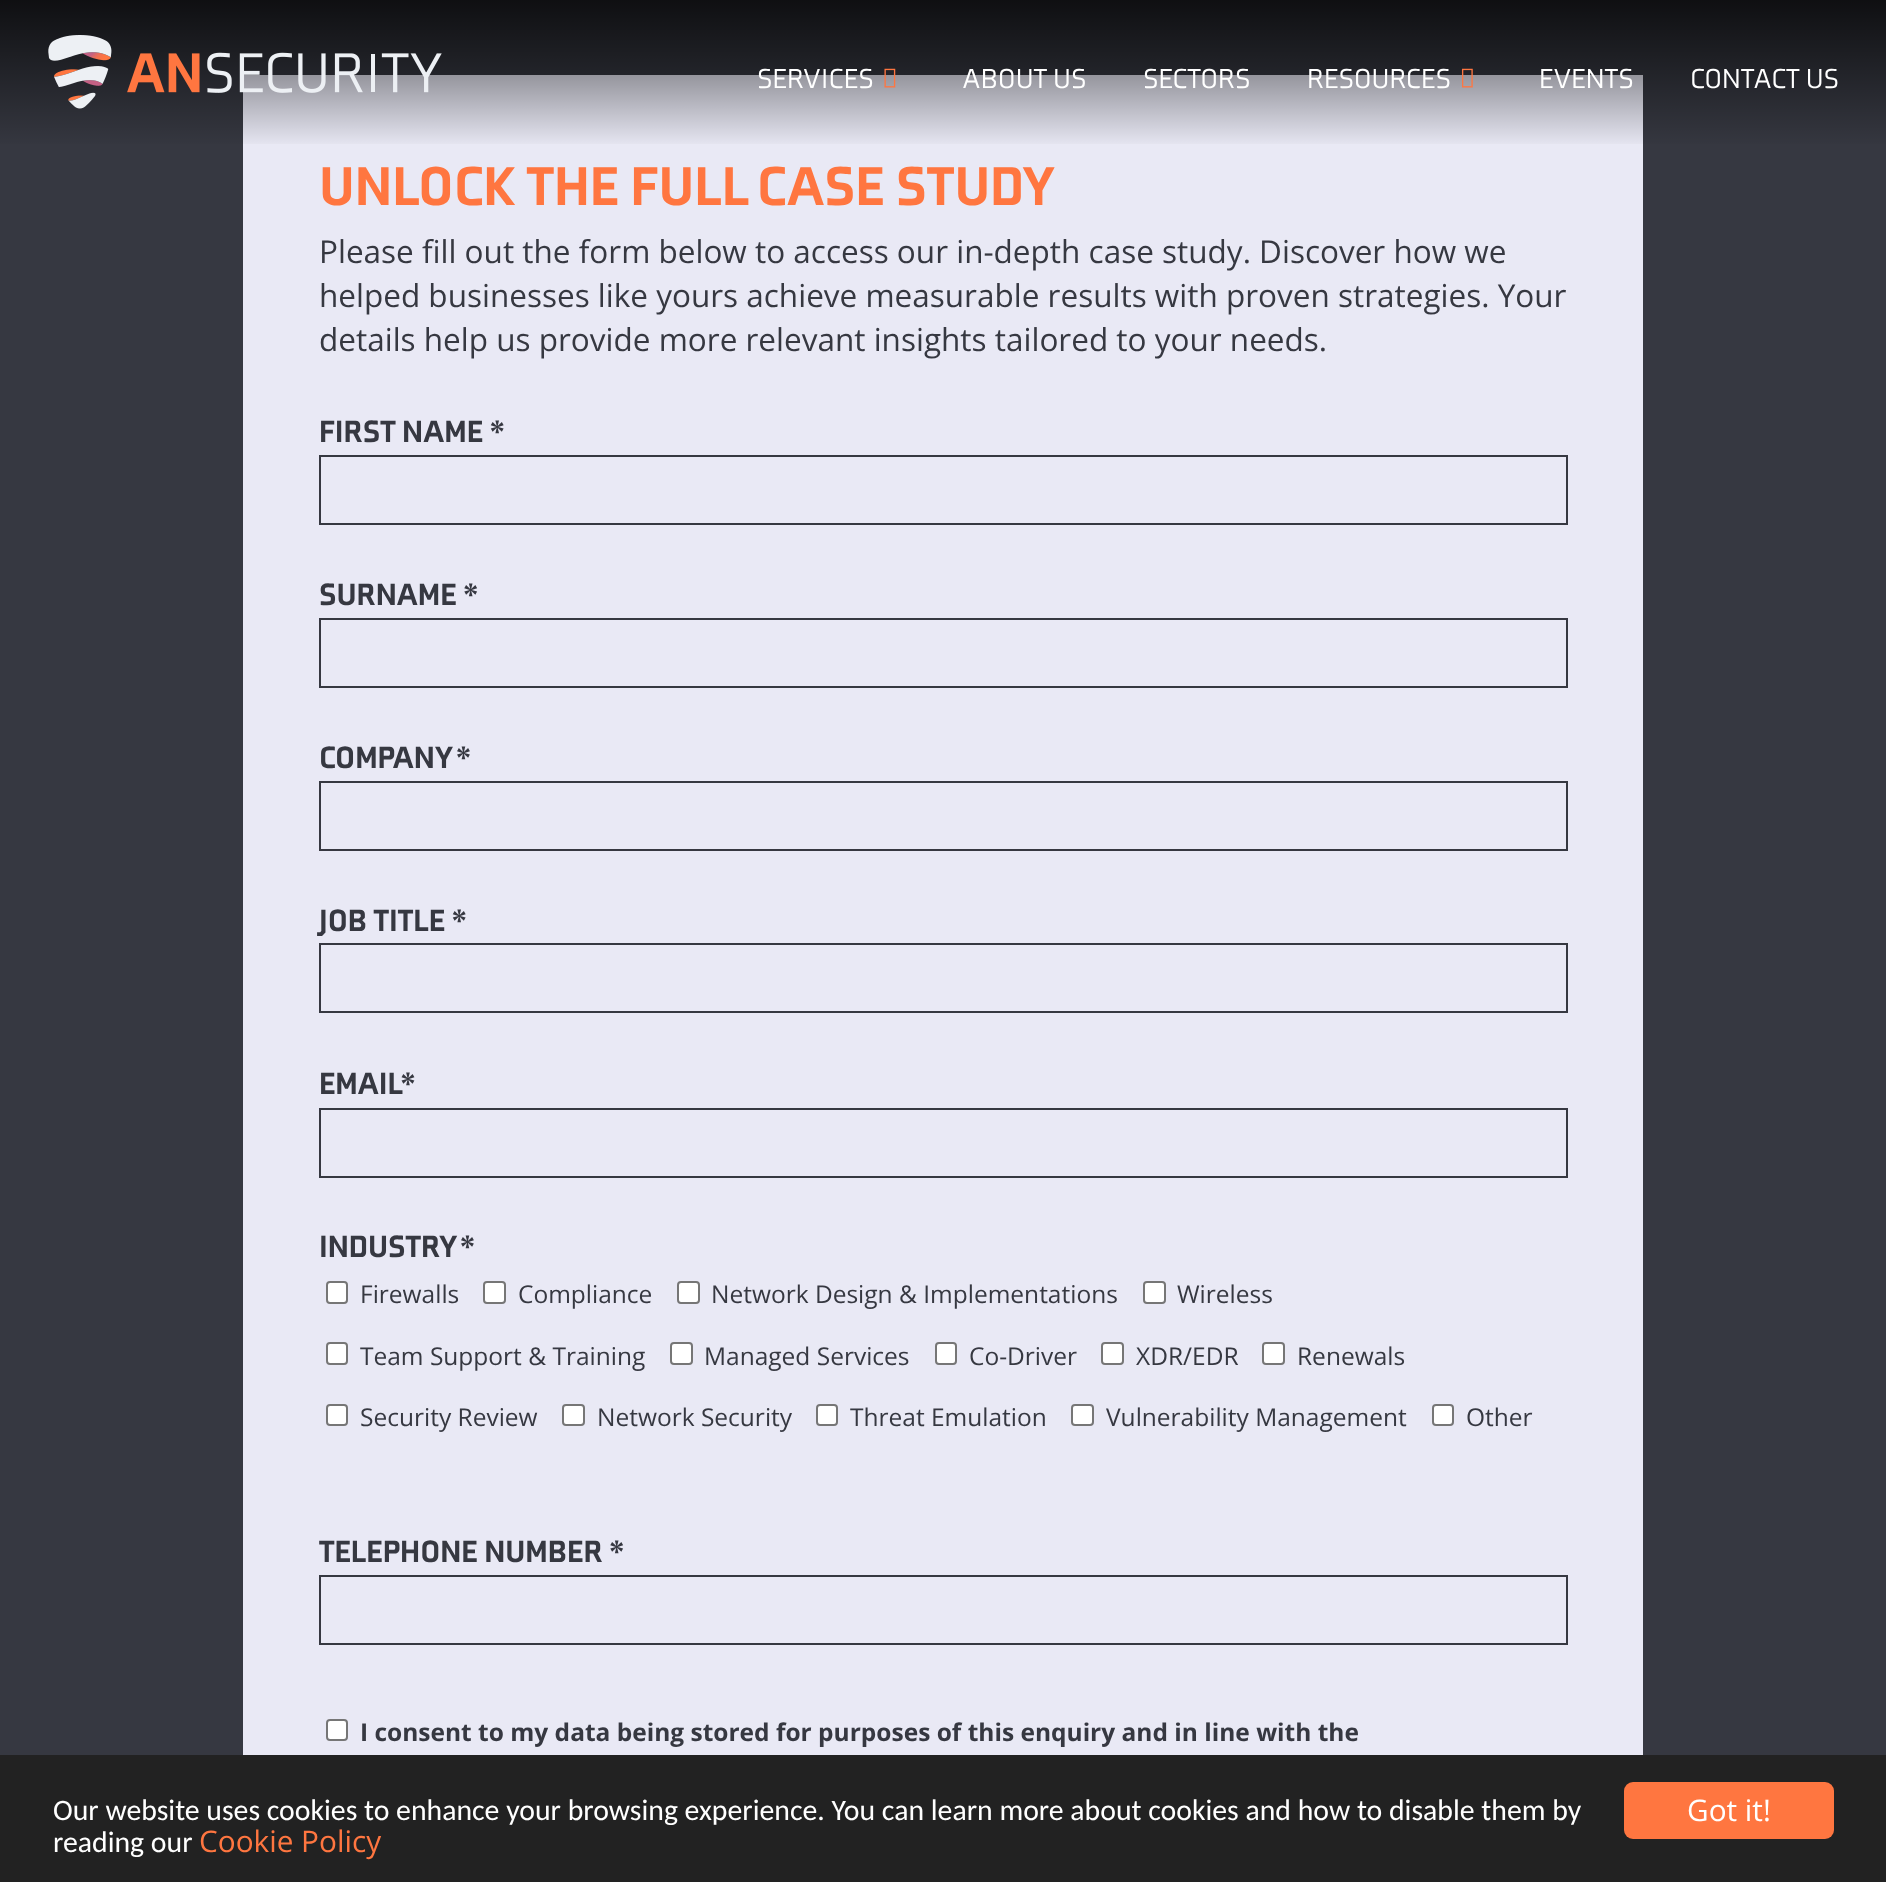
<!DOCTYPE html>
<meta charset="utf-8">
<style>body { margin: 0 } canvas { display: block }</style>
<canvas id="canvas" width="1886" height="1882"></canvas>
<img id="img1" src="img_01.png" hidden>
<img id="img2" src="img_02.png" hidden>
<img id="img3" src="img_03.png" hidden>
<script>
window.onload = function () {
	const canvas = document.getElementById("canvas");
	const ctx = canvas.getContext("2d");
	ctx.miterLimit = 4;
	ctx.fontKerning = "normal";
	function txt(s, x, y) {
		ctx.fillText(s, x, y);
	}
	function fill(x, y, w, h) {
		ctx.fillRect(x, y, w, h);
	}
	function round(x, y, w, h, r) {
		ctx.beginPath();
		ctx.roundRect(x, y, w, h, r);
		ctx.fill();
	}
	function img(id, x, y, w, h) {
		ctx.drawImage(document.getElementById(id), x, y, w, h);
	}
	let gradient;

	ctx.fillStyle = "#363841";
	fill(0, 0, 1886, 1882);
	ctx.fillStyle = "#E9E9F5";
	fill(243, 75, 1400, 1680);
	gradient = ctx.createLinearGradient(943, 156, 943, 0);
	gradient.addColorStop(0.05, "rgba(0, 0, 0, 0)");
	gradient.addColorStop(1, "rgba(0, 0, 0, 0.73)");
	ctx.fillStyle = gradient;
	fill(0, 0, 1886, 144);
	img("img1", 48, 35, 394, 74);
	img("img2", 884, 68, 12, 20);
	img("img3", 1461, 68, 12, 20);
	ctx.strokeStyle = "#363841";
	ctx.lineWidth = 2;
	ctx.strokeRect(320, 456, 1247, 68);
	ctx.strokeRect(320, 619, 1247, 68);
	ctx.strokeRect(320, 782, 1247, 68);
	ctx.strokeRect(320, 944, 1247, 68);
	ctx.strokeRect(320, 1109, 1247, 68);
	ctx.fillStyle = "#FFFFFF";
	ctx.beginPath();
	ctx.roundRect(327, 1282, 20, 21, 3);
	ctx.fill();
	ctx.strokeStyle = "#767676";
	ctx.stroke();
	ctx.beginPath();
	ctx.roundRect(484, 1282, 21, 21, 3);
	ctx.fill();
	ctx.stroke();
	ctx.beginPath();
	ctx.roundRect(678, 1282, 21, 21, 3);
	ctx.fill();
	ctx.stroke();
	ctx.beginPath();
	ctx.roundRect(1144, 1282, 21, 21, 3);
	ctx.fill();
	ctx.stroke();
	ctx.beginPath();
	ctx.roundRect(327, 1343, 20, 21, 3);
	ctx.fill();
	ctx.stroke();
	ctx.beginPath();
	ctx.roundRect(671, 1343, 21, 21, 3);
	ctx.fill();
	ctx.stroke();
	ctx.beginPath();
	ctx.roundRect(936, 1343, 20, 21, 3);
	ctx.fill();
	ctx.stroke();
	ctx.beginPath();
	ctx.roundRect(1102, 1343, 21, 21, 3);
	ctx.fill();
	ctx.stroke();
	ctx.beginPath();
	ctx.roundRect(1263, 1343, 21, 21, 3);
	ctx.fill();
	ctx.stroke();
	ctx.beginPath();
	ctx.roundRect(327, 1405, 20, 20, 3);
	ctx.fill();
	ctx.stroke();
	ctx.beginPath();
	ctx.roundRect(563, 1405, 21, 20, 3);
	ctx.fill();
	ctx.stroke();
	ctx.beginPath();
	ctx.roundRect(817, 1405, 20, 20, 3);
	ctx.fill();
	ctx.stroke();
	ctx.beginPath();
	ctx.roundRect(1072, 1405, 21, 20, 3);
	ctx.fill();
	ctx.stroke();
	ctx.beginPath();
	ctx.roundRect(1433, 1405, 20, 20, 3);
	ctx.fill();
	ctx.stroke();
	ctx.strokeStyle = "#363841";
	ctx.strokeRect(320, 1576, 1247, 68);
	ctx.beginPath();
	ctx.roundRect(327, 1720, 20, 20, 3);
	ctx.fill();
	ctx.strokeStyle = "#767676";
	ctx.stroke();
	ctx.fillStyle = "#222222";
	fill(0, 1755, 1886, 127);
	ctx.fillStyle = "#FF7640";
	round(1624, 1782, 210, 57, 9);
	ctx.font = "28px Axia";
	ctx.fillStyle = "#FFFFFF";
	txt("SERVICES", 757, 88);
	txt("ABOUT US", 962, 88);
	txt("SECTORS", 1143, 88);
	txt("RESOURCES", 1307, 88);
	txt("EVENTS", 1539, 88);
	txt("CONTACT US", 1690, 88);
	ctx.font = "900 56px Axia";
	ctx.fillStyle = "#FF7640";
	txt("UNLOCK THE FULL CASE STUDY", 319, 205);
	ctx.font = "31.5px Open Sans";
	ctx.fillStyle = "#363841";
	txt("Please fill out the form below to access our in-depth case study. Discover how we", 319, 263);
	txt("helped businesses like yours achieve measurable results with proven strategies. Your", 319, 307);
	txt("details help us provide more relevant insights tailored to your needs.", 319, 351);
	ctx.font = "900 31.5px Axia";
	txt("FIRST NAME *", 319, 442);
	txt("SURNAME *", 319, 605);
	txt("COMPANY *", 319, 768);
	txt("JOB TITLE *", 319, 931);
	txt("EMAIL*", 319, 1094);
	txt("INDUSTRY *", 319, 1257);
	ctx.font = "24.5px Open Sans";
	txt("Firewalls", 360, 1303);
	txt("Compliance", 518, 1303);
	txt("Network Design & Implementations", 711, 1303);
	txt("Wireless", 1177, 1303);
	txt("Team Support & Training", 360, 1365);
	txt("Managed Services", 704, 1365);
	txt("Co-Driver", 969, 1365);
	txt("XDR/EDR", 1136, 1365);
	txt("Renewals", 1297, 1365);
	txt("Security Review", 360, 1426);
	txt("Network Security", 597, 1426);
	txt("Threat Emulation", 850, 1426);
	txt("Vulnerability Management", 1106, 1426);
	txt("Other", 1466, 1426);
	ctx.font = "900 31.5px Axia";
	txt("TELEPHONE NUMBER *", 319, 1562);
	ctx.font = "bold 24.5px Open Sans";
	txt("I consent to my data being stored for purposes of this enquiry and in line with the", 360, 1741);
	ctx.font = "29.75px Carlito";
	ctx.fillStyle = "#FFFFFF";
	txt("Our website uses cookies to enhance your browsing experience. You can learn more about cookies and how to disable them by", 53, 1820);
	txt("reading our", 53, 1852);
	ctx.font = "29.75px Open Sans";
	ctx.fillStyle = "#FF7640";
	txt("Cookie Policy", 199, 1852);
	ctx.fillStyle = "#FFFFFF";
	txt("Got it!", 1687, 1821);
};
</script>
